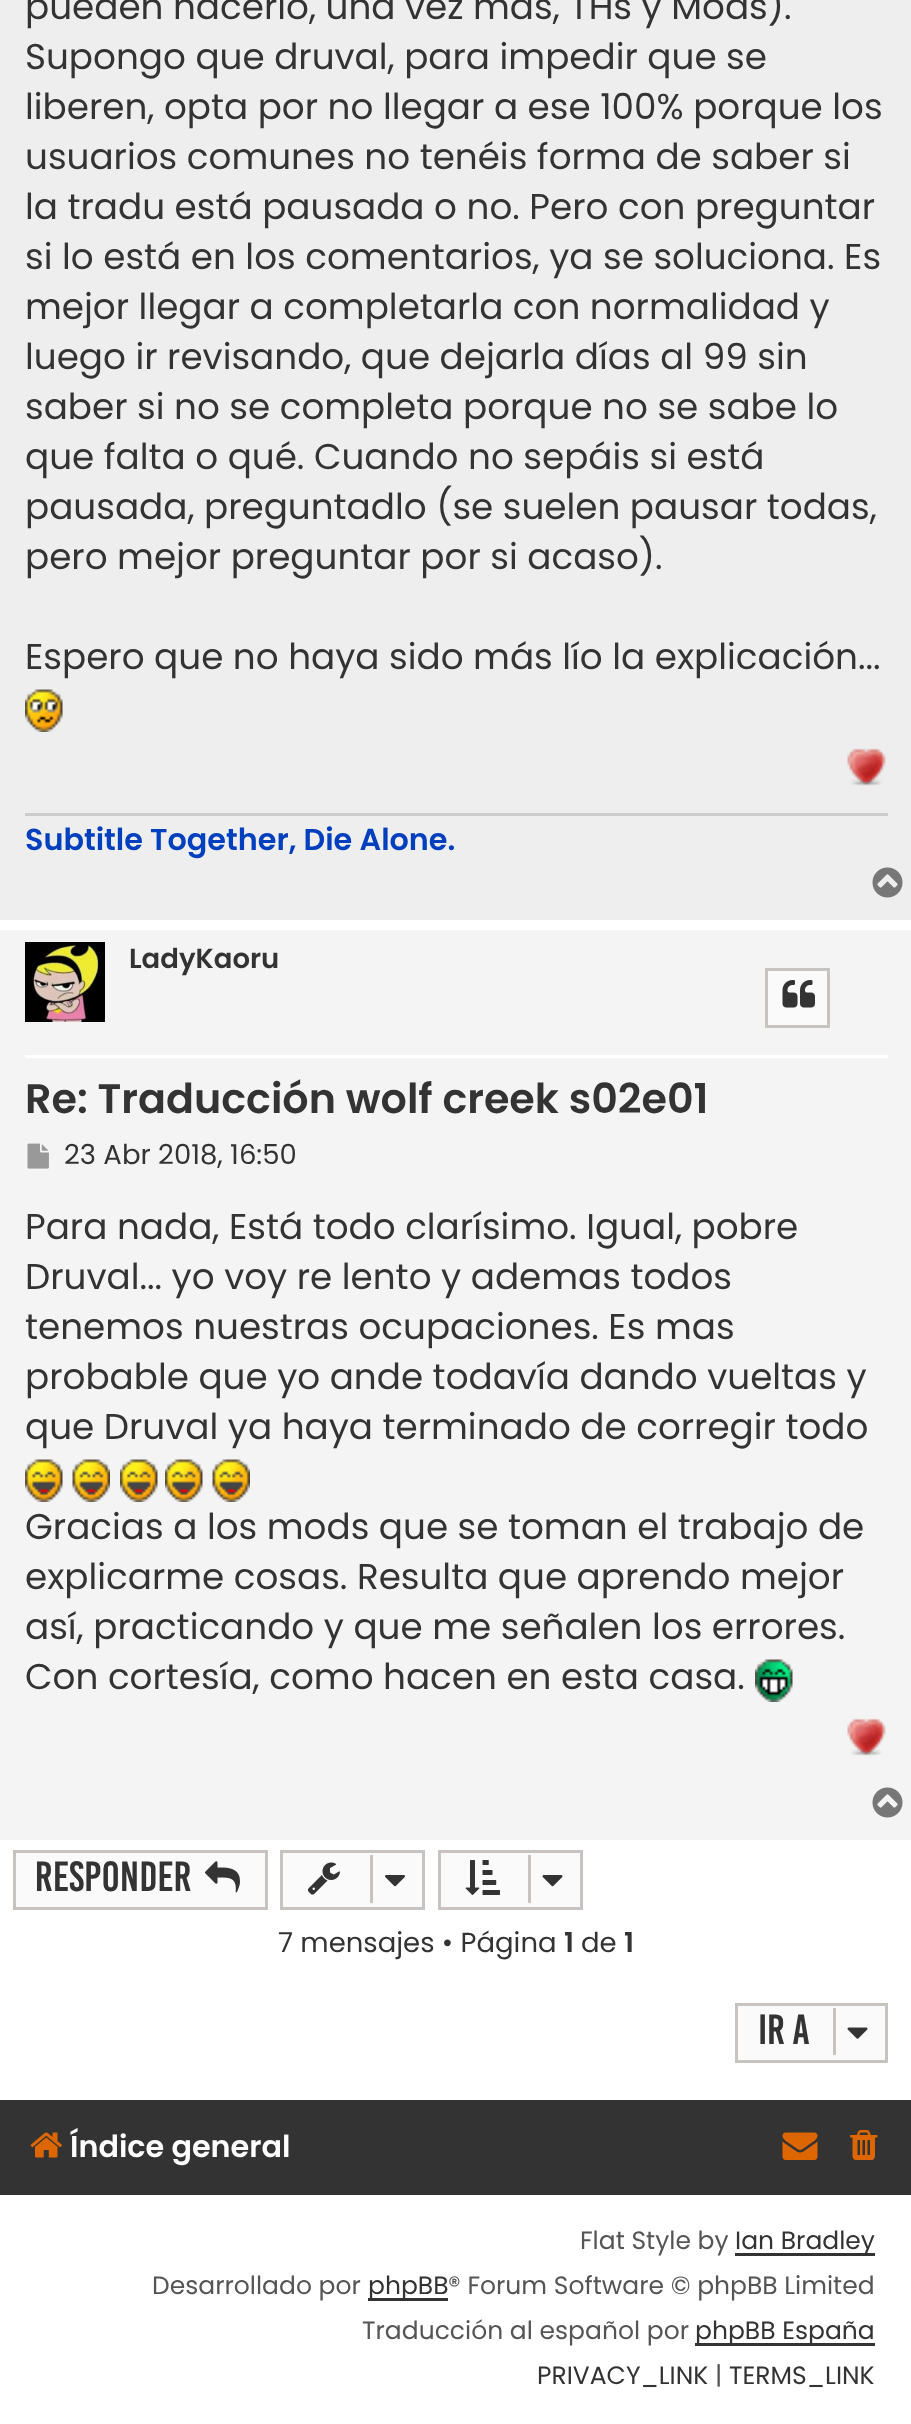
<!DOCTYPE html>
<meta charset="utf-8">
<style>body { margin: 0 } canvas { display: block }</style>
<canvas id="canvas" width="911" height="2424"></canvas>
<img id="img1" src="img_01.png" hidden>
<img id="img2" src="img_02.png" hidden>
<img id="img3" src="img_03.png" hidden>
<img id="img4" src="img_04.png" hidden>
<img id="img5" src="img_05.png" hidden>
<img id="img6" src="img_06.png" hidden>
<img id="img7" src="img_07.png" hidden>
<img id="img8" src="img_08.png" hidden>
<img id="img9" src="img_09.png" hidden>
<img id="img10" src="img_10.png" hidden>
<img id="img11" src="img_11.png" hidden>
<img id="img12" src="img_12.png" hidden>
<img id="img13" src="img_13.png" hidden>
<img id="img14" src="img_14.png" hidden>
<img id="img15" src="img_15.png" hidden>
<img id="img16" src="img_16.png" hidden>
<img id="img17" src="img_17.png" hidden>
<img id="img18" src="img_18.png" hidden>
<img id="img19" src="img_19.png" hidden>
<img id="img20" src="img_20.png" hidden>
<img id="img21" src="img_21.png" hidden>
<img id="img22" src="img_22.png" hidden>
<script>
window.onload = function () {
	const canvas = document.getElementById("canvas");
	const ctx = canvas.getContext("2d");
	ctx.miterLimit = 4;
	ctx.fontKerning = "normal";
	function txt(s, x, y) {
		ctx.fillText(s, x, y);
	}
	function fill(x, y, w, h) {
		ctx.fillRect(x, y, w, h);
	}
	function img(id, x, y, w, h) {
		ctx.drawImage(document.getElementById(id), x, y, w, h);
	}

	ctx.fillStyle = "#FFFFFF";
	fill(0, 0, 911, 2424);
	ctx.fillStyle = "#EEEEEE";
	fill(0, 0, 911, 920);
	img("img1", 25, 689, 38, 43);
	img("img2", 847, 748, 39, 38);
	ctx.fillStyle = "#CCCCCC";
	fill(25, 813, 863, 3);
	img("img3", 872, 867, 31, 31);
	ctx.fillStyle = "#F4F4F4";
	fill(0, 930, 911, 910);
	ctx.fillStyle = "#FFFFFF";
	fill(25, 1055, 863, 3);
	img("img4", 25, 942, 80, 80);
	ctx.fillStyle = "#FAFAFA";
	ctx.beginPath();
	ctx.rect(766.5, 969.5, 62, 57);
	ctx.fill();
	ctx.strokeStyle = "#C7C3BF";
	ctx.lineWidth = 3;
	ctx.stroke();
	img("img5", 782, 980, 33, 28);
	img("img6", 27, 1143, 22, 26);
	img("img7", 25, 1459, 38, 43);
	img("img8", 72, 1459, 38, 43);
	img("img9", 120, 1459, 38, 43);
	img("img9", 165, 1459, 38, 43);
	img("img10", 212, 1459, 38, 43);
	img("img11", 755, 1659, 38, 43);
	img("img12", 847, 1718, 39, 38);
	img("img13", 872, 1787, 31, 31);
	ctx.beginPath();
	ctx.rect(14.5, 1851.5, 252, 57);
	ctx.fill();
	ctx.stroke();
	img("img14", 205, 1861, 35, 32);
	ctx.beginPath();
	ctx.rect(281.5, 1851.5, 142, 57);
	ctx.fill();
	ctx.stroke();
	img("img15", 307, 1862, 33, 33);
	ctx.fillStyle = "#C7C3BF";
	fill(370, 1855, 3, 48);
	img("img16", 385, 1875, 20, 12);
	ctx.fillStyle = "#FAFAFA";
	ctx.beginPath();
	ctx.rect(439.5, 1851.5, 142, 57);
	ctx.fill();
	ctx.stroke();
	img("img17", 465, 1860, 35, 35);
	ctx.fillStyle = "#C7C3BF";
	fill(528, 1855, 3, 48);
	img("img18", 542, 1875, 21, 12);
	ctx.fillStyle = "#FAFAFA";
	ctx.beginPath();
	ctx.rect(736.5, 2004.5, 150, 57);
	ctx.fill();
	ctx.stroke();
	ctx.fillStyle = "#C7C3BF";
	fill(833, 2008, 3, 47);
	img("img19", 847, 2027, 21, 12);
	ctx.fillStyle = "#333333";
	fill(0, 2100, 911, 95);
	img("img20", 30, 2132, 32, 26);
	img("img21", 782, 2132, 36, 28);
	img("img22", 850, 2130, 28, 30);
	fill(735, 2253, 140, 3);
	fill(368, 2298, 80, 3);
	fill(695, 2343, 180, 3);
	ctx.font = "35.75px Poppins";
	txt("pueden hacerlo, una vez más, THs y Mods).", 25, 19);
	txt("Supongo que druval, para impedir que se", 25, 69);
	txt("liberen, opta por no llegar a ese 100% porque los", 25, 119);
	txt("usuarios comunes no tenéis forma de saber si", 25, 169);
	txt("la tradu está pausada o no. Pero con preguntar", 25, 219);
	txt("si lo está en los comentarios, ya se soluciona. Es", 25, 269);
	txt("mejor llegar a completarla con normalidad y", 25, 319);
	txt("luego ir revisando, que dejarla días al 99 sin", 25, 369);
	txt("saber si no se completa porque no se sabe lo", 25, 419);
	txt("que falta o qué. Cuando no sepáis si está", 25, 469);
	txt("pausada, preguntadlo (se suelen pausar todas,", 25, 519);
	txt("pero mejor preguntar por si acaso).", 25, 569);
	txt("Espero que no haya sido más lío la explicación...", 25, 669);
	ctx.font = "600 30.25px Poppins";
	ctx.fillStyle = "#0040BF";
	txt("Subtitle Together, Die Alone.", 25, 850);
	ctx.font = "600 27.5px Poppins";
	ctx.fillStyle = "#333333";
	txt("LadyKaoru", 129, 968);
	ctx.font = "600 41.25px Poppins";
	txt("Re: Traducción wolf creek s02e01", 25, 1113);
	ctx.font = "27.5px Poppins";
	txt("23 Abr 2018, 16:50", 64, 1164);
	ctx.font = "35.75px Poppins";
	txt("Para nada, Está todo clarísimo. Igual, pobre", 25, 1239);
	txt("Druval... yo voy re lento y ademas todos", 25, 1289);
	txt("tenemos nuestras ocupaciones. Es mas", 25, 1339);
	txt("probable que yo ande todavía dando vueltas y", 25, 1389);
	txt("que Druval ya haya terminado de corregir todo", 25, 1439);
	txt("Gracias a los mods que se toman el trabajo de", 25, 1539);
	txt("explicarme cosas. Resulta que aprendo mejor", 25, 1589);
	txt("así, practicando y que me señalen los errores.", 25, 1639);
	txt("Con cortesía, como hacen en esta casa.", 25, 1689);
	ctx.font = "32.5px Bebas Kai";
	txt("Responder", 35, 1891);
	ctx.font = "27.5px Poppins";
	txt("7 mensajes • Página", 278, 1952);
	ctx.font = "600 27.5px Poppins";
	txt("1", 564, 1952);
	ctx.font = "27.5px Poppins";
	txt("de", 581, 1952);
	ctx.font = "600 27.5px Poppins";
	txt("1", 624, 1952);
	ctx.font = "32.5px Bebas Kai";
	txt("Ir a", 758, 2044);
	ctx.font = "600 30.25px Poppins";
	ctx.fillStyle = "#FFFFFF";
	txt("Índice general", 70, 2157);
	ctx.font = "25px Poppins";
	ctx.fillStyle = "#555555";
	txt("Flat Style by", 580, 2249);
	ctx.fillStyle = "#333333";
	txt("Ian Bradley", 735, 2249);
	ctx.fillStyle = "#555555";
	txt("Desarrollado por", 152, 2294);
	ctx.fillStyle = "#333333";
	txt("phpBB", 368, 2294);
	ctx.fillStyle = "#555555";
	txt("® Forum Software © phpBB Limited", 448, 2294);
	txt("Traducción al español por", 362, 2339);
	ctx.fillStyle = "#333333";
	txt("phpBB España", 695, 2339);
	txt("PRIVACY_LINK", 537, 2384);
	ctx.fillStyle = "#555555";
	txt("|", 715, 2384);
	ctx.fillStyle = "#333333";
	txt("TERMS_LINK", 729, 2384);
};
</script>
